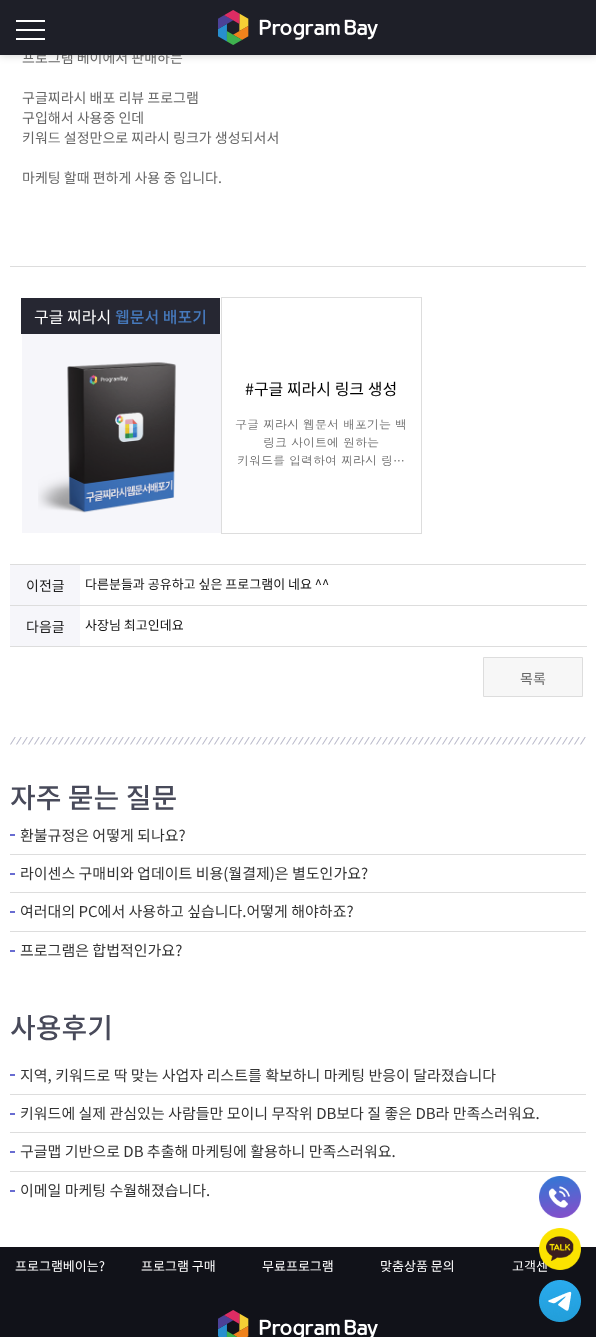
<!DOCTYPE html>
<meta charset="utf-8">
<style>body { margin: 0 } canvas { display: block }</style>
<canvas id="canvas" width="596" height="1337"></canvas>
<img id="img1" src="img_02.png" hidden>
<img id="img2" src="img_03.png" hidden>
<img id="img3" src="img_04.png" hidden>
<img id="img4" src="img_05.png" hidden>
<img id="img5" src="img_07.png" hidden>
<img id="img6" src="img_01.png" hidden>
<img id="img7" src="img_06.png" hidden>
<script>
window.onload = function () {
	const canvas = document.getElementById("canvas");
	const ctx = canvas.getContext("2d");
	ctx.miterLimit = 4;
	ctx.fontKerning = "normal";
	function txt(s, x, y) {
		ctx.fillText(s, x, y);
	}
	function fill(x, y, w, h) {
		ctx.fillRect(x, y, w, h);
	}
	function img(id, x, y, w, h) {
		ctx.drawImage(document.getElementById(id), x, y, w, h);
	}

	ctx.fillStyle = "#FFFFFF";
	fill(0, 0, 596, 1337);
	ctx.fillStyle = "rgba(0, 0, 0, 0.2)";
	ctx.filter = "blur(4.5px)";
	ctx.beginPath();
	ctx.rect(0, 0, 596, 55);
	ctx.fill();
	ctx.filter = "none";
	ctx.fillStyle = "#DDDDDD";
	fill(10, 266, 576, 1);
	fill(10, 564, 576, 1);
	ctx.fillStyle = "#262732";
	fill(21, 298, 199, 36);
	img("img1", 22, 334, 199, 199);
	ctx.fillStyle = "#DDDDDD";
	fill(221, 297, 201, 1);
	fill(421, 297, 1, 237);
	fill(221, 533, 201, 1);
	fill(221, 297, 1, 237);
	ctx.fillStyle = "#F6F6FA";
	fill(10, 565, 70, 40);
	ctx.fillStyle = "#DDDDDD";
	fill(10, 605, 577, 1);
	ctx.fillStyle = "#F6F6FA";
	fill(10, 606, 70, 40);
	ctx.fillStyle = "#DDDDDD";
	fill(10, 646, 577, 1);
	ctx.fillStyle = "#F7F7F7";
	ctx.beginPath();
	ctx.rect(483.5, 657.5, 99, 39);
	ctx.fill();
	ctx.strokeStyle = "#DDDDDD";
	ctx.stroke();
	img("img2", 10, 737, 576, 8);
	ctx.fillStyle = "#686CD1";
	fill(10, 834, 5, 2);
	ctx.fillStyle = "#DDDDDD";
	fill(10, 854, 576, 1);
	ctx.fillStyle = "#686CD1";
	fill(10, 873, 5, 2);
	ctx.fillStyle = "#DDDDDD";
	fill(10, 892, 576, 1);
	ctx.fillStyle = "#686CD1";
	fill(10, 911, 5, 2);
	ctx.fillStyle = "#DDDDDD";
	fill(10, 931, 576, 1);
	ctx.fillStyle = "#686CD1";
	fill(10, 950, 5, 2);
	fill(10, 1074, 5, 2);
	ctx.fillStyle = "#DDDDDD";
	fill(10, 1094, 576, 1);
	ctx.fillStyle = "#686CD1";
	fill(10, 1113, 5, 2);
	ctx.fillStyle = "#DDDDDD";
	fill(10, 1132, 576, 1);
	ctx.fillStyle = "#686CD1";
	fill(10, 1151, 5, 2);
	ctx.fillStyle = "#DDDDDD";
	fill(10, 1171, 576, 1);
	ctx.fillStyle = "#686CD1";
	fill(10, 1190, 5, 2);
	ctx.fillStyle = "#111219";
	fill(0, 1247, 596, 90);
	img("img3", 218, 1310, 160, 27);
	img("img4", 539, 1176, 42, 42);
	img("img5", 539, 1280, 42, 42);
	ctx.font = "14px Noto Sans KR";
	ctx.fillStyle = "#666666";
	txt("프로그램 베이에서 판매하는", 22, 63);
	ctx.fillStyle = "#1E1F28";
	fill(0, 0, 596, 55);
	ctx.fillStyle = "#FFFFFF";
	fill(16, 38, 29, 2);
	fill(16, 29, 29, 2);
	fill(16, 20, 29, 2);
	img("img6", 218, 10, 160, 35);
	ctx.fillStyle = "#666666";
	txt("구글찌라시 배포 리뷰 프로그램", 22, 103);
	txt("구입해서 사용중 인데", 22, 123);
	txt("키워드 설정만으로 찌라시 링크가 생성되서서", 22, 143);
	txt("마케팅 할때 편하게 사용 중 입니다.", 22, 183);
	ctx.font = "16px Noto Sans KR";
	ctx.fillStyle = "#FFFFFF";
	txt("구글 찌라시", 34, 323);
	ctx.font = "500 16px Noto Sans KR";
	ctx.fillStyle = "#4679BC";
	txt("웹문서 배포기", 115, 323);
	ctx.font = "16px Noto Sans KR";
	ctx.fillStyle = "#000000";
	txt("#구글 찌라시 링크 생성", 245, 395);
	ctx.font = "12px Dotum";
	ctx.fillStyle = "#666666";
	txt("구글 찌라시 웹문서 배포기는 백", 235, 429);
	txt("링크 사이트에 원하는", 263, 447);
	txt("키워드를 입력하여 찌라시 링…", 237, 465);
	ctx.font = "14px Noto Sans KR";
	ctx.fillStyle = "#222222";
	txt("이전글", 26, 591);
	ctx.font = "13px Noto Sans KR";
	ctx.fillStyle = "#111111";
	txt("다른분들과 공유하고 싶은 프로그램이 네요 ^^", 85, 589);
	ctx.font = "14px Noto Sans KR";
	ctx.fillStyle = "#222222";
	txt("다음글", 26, 632);
	ctx.font = "13px Noto Sans KR";
	ctx.fillStyle = "#111111";
	txt("사장님 최고인데요", 85, 630);
	ctx.font = "14px Noto Sans KR";
	ctx.fillStyle = "#666666";
	txt("목록", 520, 684);
	ctx.font = "500 28px Noto Sans KR";
	ctx.fillStyle = "#484A5A";
	txt("자주 묻는 질문", 10, 808);
	ctx.font = "15px Noto Sans KR";
	ctx.fillStyle = "#333333";
	txt("환불규정은 어떻게 되나요?", 20, 841);
	txt("라이센스 구매비와 업데이트 비용(월결제)은 별도인가요?", 20, 879);
	txt("여러대의 PC에서 사용하고 싶습니다.어떻게 해야하죠?", 20, 917);
	txt("프로그램은 합법적인가요?", 20, 956);
	ctx.font = "500 28px Noto Sans KR";
	ctx.fillStyle = "#484A5A";
	txt("사용후기", 10, 1038);
	ctx.font = "15px Noto Sans KR";
	ctx.fillStyle = "#333333";
	txt("지역, 키워드로 딱 맞는 사업자 리스트를 확보하니 마케팅 반응이 달라졌습니다", 20, 1081);
	txt("키워드에 실제 관심있는 사람들만 모이니 무작위 DB보다 질 좋은 DB라 만족스러워요.", 20, 1119);
	txt("구글맵 기반으로 DB 추출해 마케팅에 활용하니 만족스러워요.", 20, 1157);
	txt("이메일 마케팅 수월해졌습니다.", 20, 1196);
	ctx.font = "13px Noto Sans KR";
	ctx.fillStyle = "#FFFFFF";
	txt("프로그램베이는?", 15, 1271);
	txt("프로그램 구매", 141, 1271);
	txt("무료프로그램", 262, 1271);
	txt("맞춤상품 문의", 380, 1271);
	txt("고객센", 512, 1271);
	img("img7", 539, 1228, 42, 42);
};
</script>
